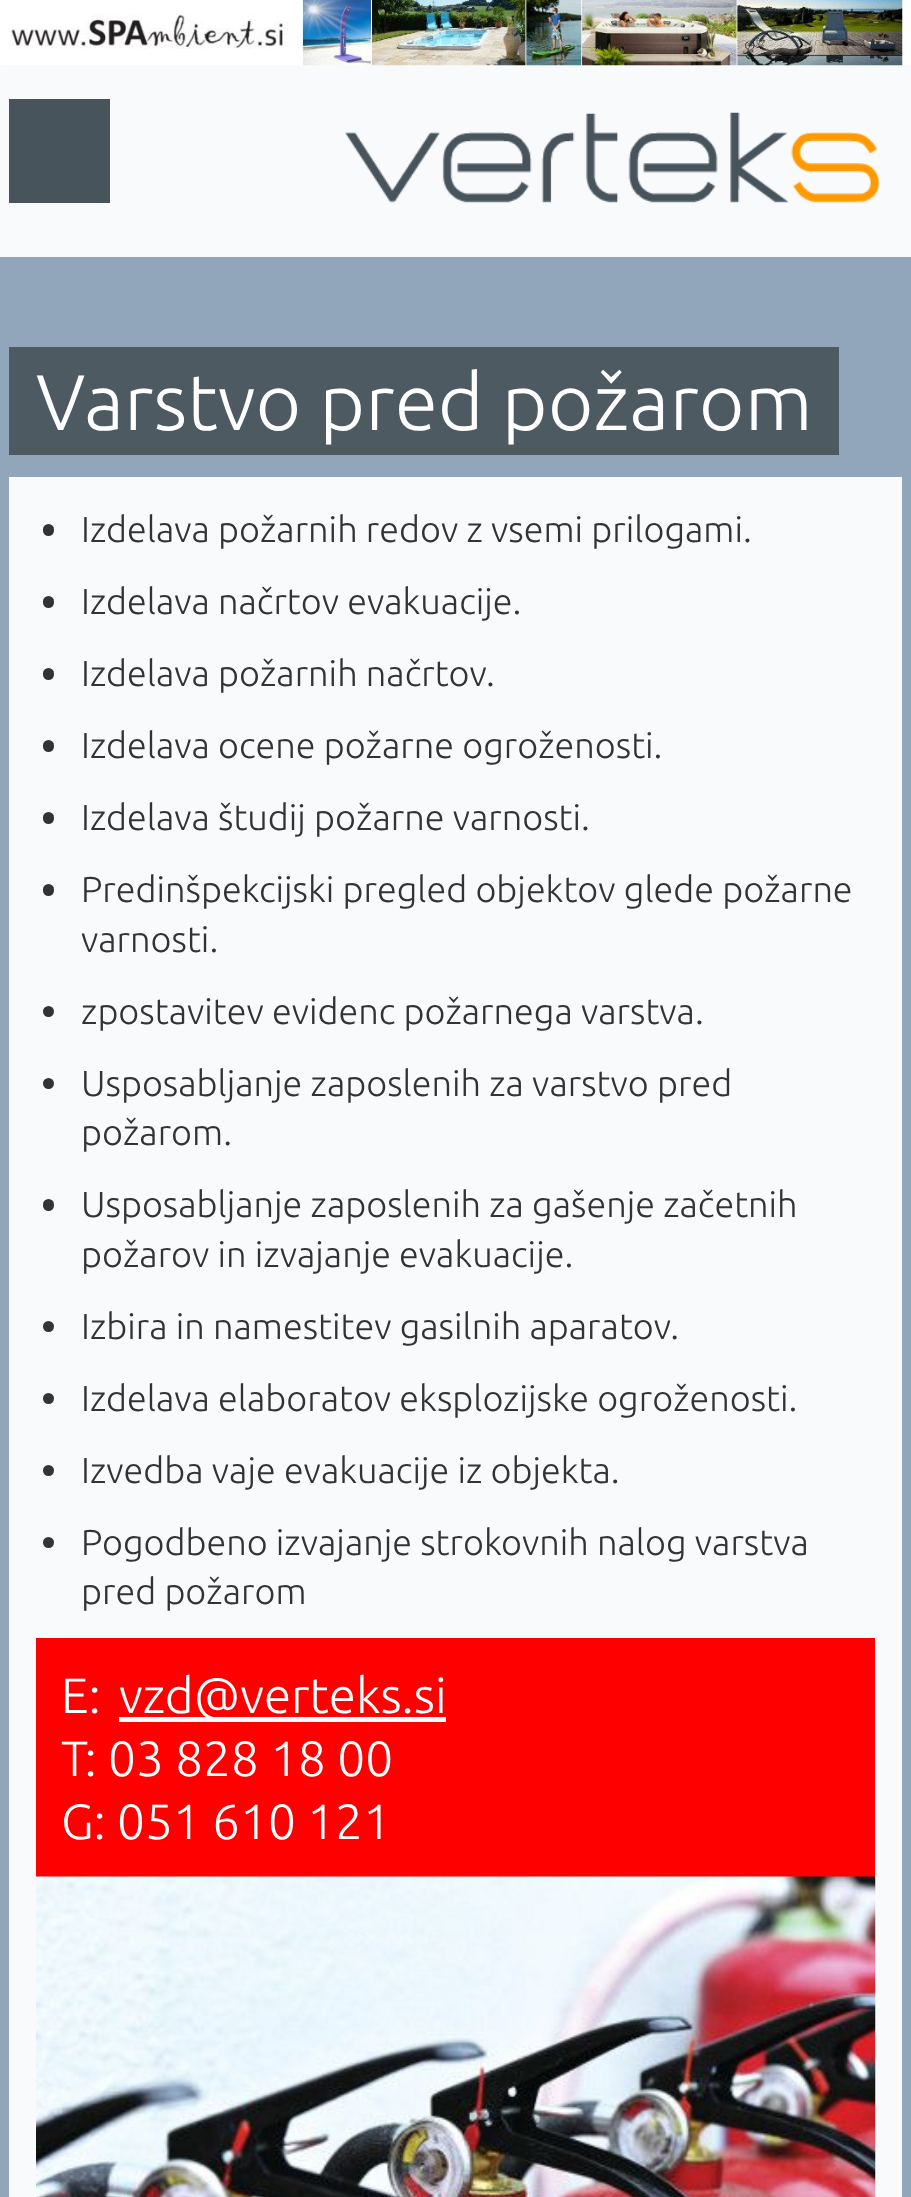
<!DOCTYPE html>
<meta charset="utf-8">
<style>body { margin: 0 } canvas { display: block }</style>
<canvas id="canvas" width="911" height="2197"></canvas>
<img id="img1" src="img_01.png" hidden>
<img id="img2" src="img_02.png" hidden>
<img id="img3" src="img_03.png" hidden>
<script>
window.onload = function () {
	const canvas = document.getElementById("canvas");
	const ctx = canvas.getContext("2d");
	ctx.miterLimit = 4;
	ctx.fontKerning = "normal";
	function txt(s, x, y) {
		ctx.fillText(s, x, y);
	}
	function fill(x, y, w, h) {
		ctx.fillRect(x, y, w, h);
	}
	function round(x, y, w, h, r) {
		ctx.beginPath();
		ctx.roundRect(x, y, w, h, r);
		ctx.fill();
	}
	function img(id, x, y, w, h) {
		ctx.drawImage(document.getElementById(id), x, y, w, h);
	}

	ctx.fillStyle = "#91A5BB";
	fill(0, 0, 911, 2197);
	ctx.fillStyle = "#FFFFFF";
	fill(0, 0, 911, 65);
	ctx.fillStyle = "#F9FAFC";
	fill(0, 65, 911, 192);
	img("img1", 9, 0, 894, 66);
	ctx.fillStyle = "#47545C";
	fill(9, 99, 101, 104);
	img("img2", 345, 112, 534, 91);
	ctx.fillStyle = "#4E5A62";
	fill(9, 347, 830, 108);
	ctx.fillStyle = "#F9FAFC";
	fill(9, 477, 893, 1720);
	ctx.fillStyle = "#333333";
	round(43, 524, 11, 12, 5.5);
	round(43, 596, 11, 12, 5.5);
	round(43, 668, 11, 12, 5.5);
	round(43, 740, 11, 12, 5.5);
	round(43, 812, 11, 12, 5.5);
	round(43, 884, 11, 12, 5.5);
	ctx.beginPath();
	ctx.arc(48.5, 1011.5, 5.5, 0, Math.PI * 2);
	ctx.fill();
	ctx.beginPath();
	ctx.arc(48.5, 1083.5, 5.5, 0, Math.PI * 2);
	ctx.fill();
	round(43, 1199, 11, 12, 5.5);
	ctx.beginPath();
	ctx.arc(48.5, 1326.5, 5.5, 0, Math.PI * 2);
	ctx.fill();
	ctx.beginPath();
	ctx.arc(48.5, 1398.5, 5.5, 0, Math.PI * 2);
	ctx.fill();
	ctx.beginPath();
	ctx.arc(48.5, 1470.5, 5.5, 0, Math.PI * 2);
	ctx.fill();
	ctx.beginPath();
	ctx.arc(48.5, 1542.5, 5.5, 0, Math.PI * 2);
	ctx.fill();
	ctx.fillStyle = "#FF0000";
	fill(36, 1638, 839, 239);
	ctx.fillStyle = "#FFFFFF";
	fill(119, 1717, 327, 5);
	img("img3", 36, 1876, 840, 321);
	ctx.font = "300 78.75px Ubuntu";
	txt("Varstvo pred požarom", 36, 430);
	ctx.font = "300 36px Ubuntu";
	ctx.fillStyle = "#333333";
	txt("Izdelava požarnih redov z vsemi prilogami.", 81, 542);
	txt("Izdelava načrtov evakuacije.", 81, 614);
	txt("Izdelava požarnih načrtov.", 81, 686);
	txt("Izdelava ocene požarne ogroženosti.", 81, 758);
	txt("Izdelava študij požarne varnosti.", 81, 830);
	txt("Predinšpekcijski pregled objektov glede požarne", 81, 902);
	txt("varnosti.", 81, 952);
	txt("zpostavitev evidenc požarnega varstva.", 81, 1024);
	txt("Usposabljanje zaposlenih za varstvo pred", 81, 1096);
	txt("požarom.", 81, 1145);
	txt("Usposabljanje zaposlenih za gašenje začetnih", 81, 1217);
	txt("požarov in izvajanje evakuacije.", 81, 1267);
	txt("Izbira in namestitev gasilnih aparatov.", 81, 1339);
	txt("Izdelava elaboratov eksplozijske ogroženosti.", 81, 1411);
	txt("Izvedba vaje evakuacije iz objekta.", 81, 1483);
	txt("Pogodbeno izvajanje strokovnih nalog varstva", 81, 1555);
	txt("pred požarom", 81, 1604);
	ctx.font = "300 49.5px Ubuntu";
	ctx.fillStyle = "#FFFFFF";
	txt("E:", 61, 1713);
	txt("vzd@verteks.si", 119, 1713);
	txt("T: 03 828 18 00", 61, 1776);
	txt("G: 051 610 121", 61, 1839);
};
</script>
